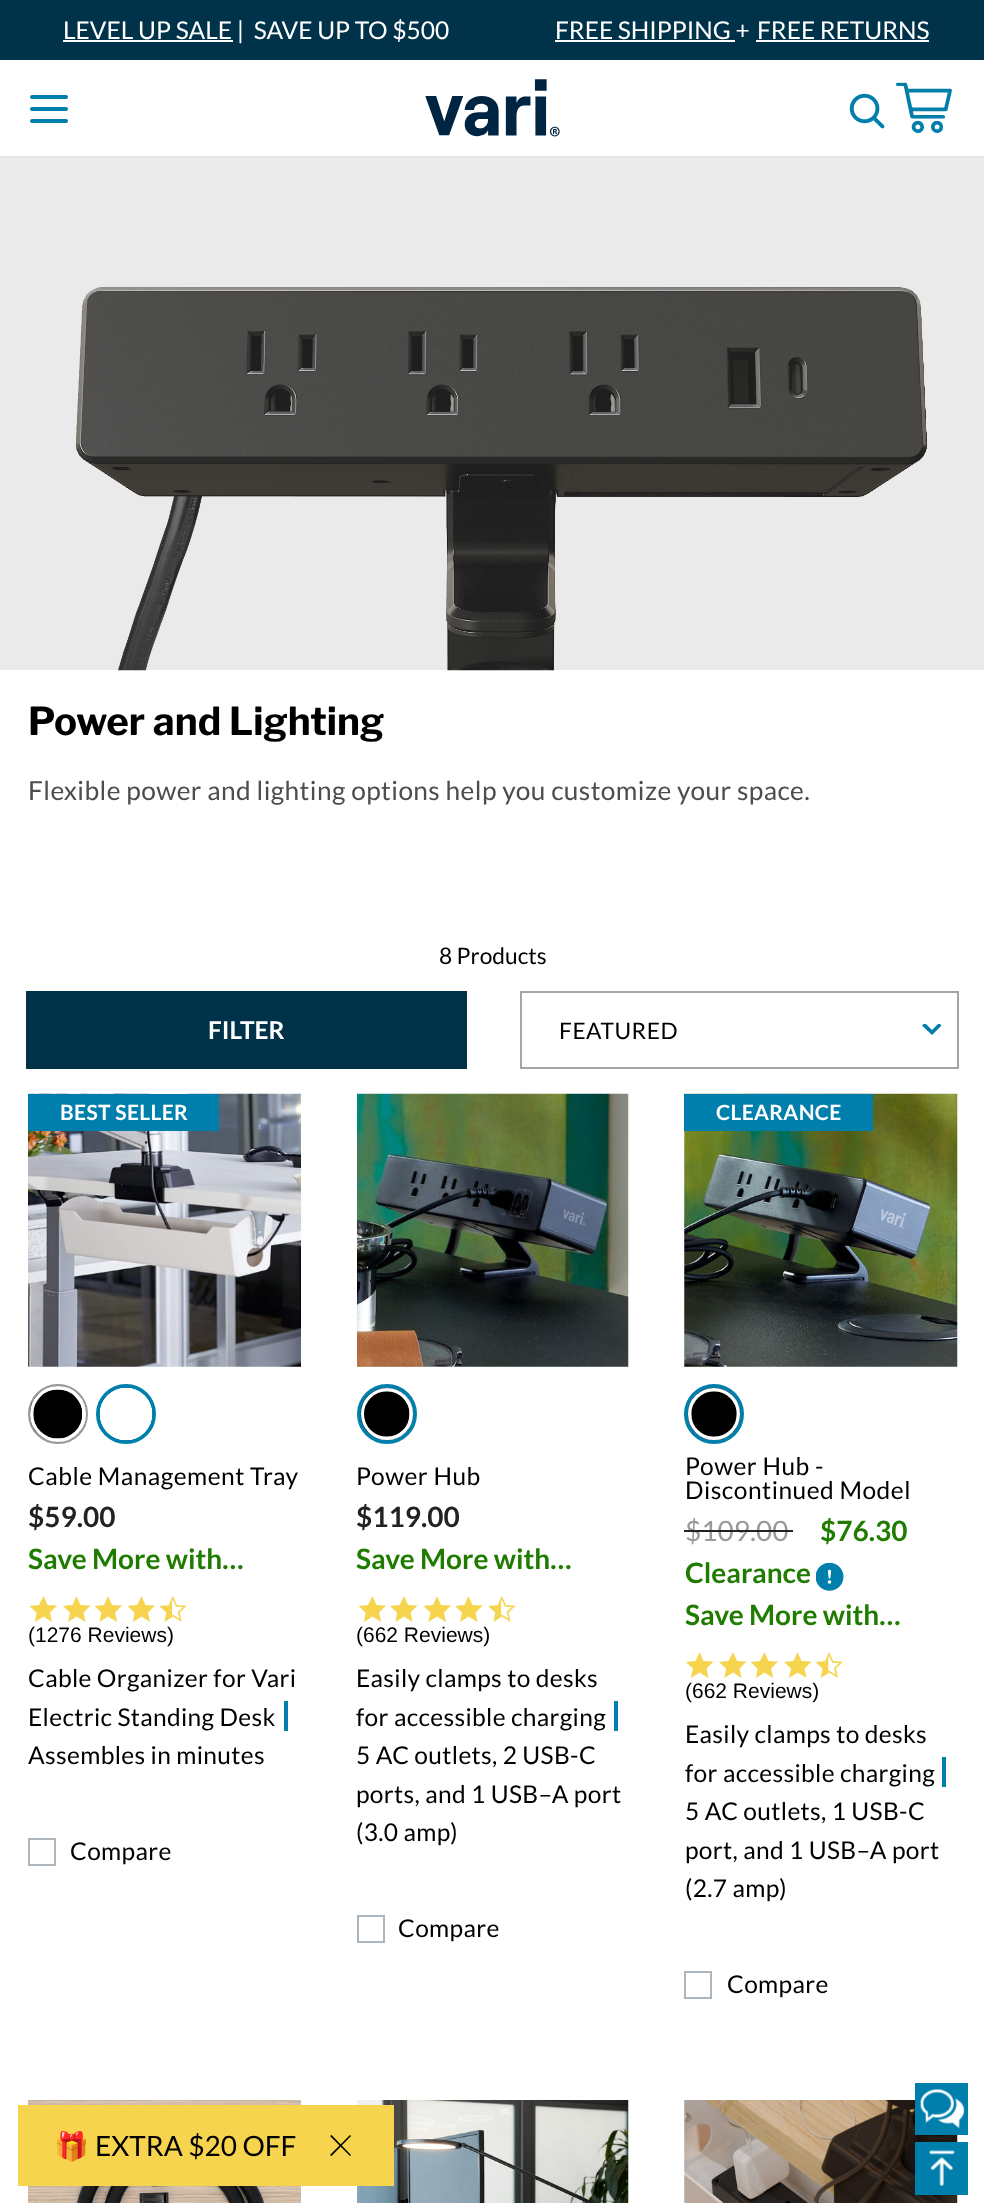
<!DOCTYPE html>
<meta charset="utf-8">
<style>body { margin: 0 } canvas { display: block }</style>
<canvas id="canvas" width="984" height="2203"></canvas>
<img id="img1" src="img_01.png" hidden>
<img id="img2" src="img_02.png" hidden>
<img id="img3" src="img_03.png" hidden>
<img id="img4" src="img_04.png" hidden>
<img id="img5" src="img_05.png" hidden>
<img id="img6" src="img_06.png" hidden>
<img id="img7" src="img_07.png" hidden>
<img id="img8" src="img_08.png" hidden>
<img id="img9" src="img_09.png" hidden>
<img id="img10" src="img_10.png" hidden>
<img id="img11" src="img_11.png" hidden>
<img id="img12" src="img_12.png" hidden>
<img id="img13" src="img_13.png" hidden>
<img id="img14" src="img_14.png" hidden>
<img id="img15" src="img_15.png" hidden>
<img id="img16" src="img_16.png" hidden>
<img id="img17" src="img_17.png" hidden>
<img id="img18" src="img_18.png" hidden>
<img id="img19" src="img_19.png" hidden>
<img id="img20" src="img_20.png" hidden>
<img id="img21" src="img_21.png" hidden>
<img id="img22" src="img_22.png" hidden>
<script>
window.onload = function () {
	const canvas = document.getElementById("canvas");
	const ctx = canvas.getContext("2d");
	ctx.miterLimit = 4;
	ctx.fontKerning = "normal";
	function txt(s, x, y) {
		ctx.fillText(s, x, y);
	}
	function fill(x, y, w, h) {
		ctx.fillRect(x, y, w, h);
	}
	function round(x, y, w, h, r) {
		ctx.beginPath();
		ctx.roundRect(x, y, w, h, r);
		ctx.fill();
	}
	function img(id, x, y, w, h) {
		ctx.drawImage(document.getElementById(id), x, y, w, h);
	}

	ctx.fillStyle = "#FFFFFF";
	fill(0, 0, 984, 2203);
	ctx.fillStyle = "#003349";
	fill(0, 0, 984, 60);
	ctx.fillStyle = "#FFFFFF";
	fill(63, 40, 170, 2);
	fill(555, 40, 180, 2);
	fill(756, 40, 173, 2);
	ctx.fillStyle = "#E6E6E6";
	fill(0, 156, 984, 2);
	ctx.fillStyle = "#007FAD";
	round(30, 95, 38, 4, 2);
	round(30, 107, 38, 4, 2);
	round(30, 119, 38, 4, 2);
	img("img1", 425, 79, 135, 58);
	img("img2", 849, 93, 36, 36);
	img("img3", 896, 82, 56, 51);
	ctx.fillStyle = "#EAEAEA";
	fill(0, 158, 984, 512);
	img("img4", 76, 287, 852, 384);
	ctx.fillStyle = "#003349";
	fill(26, 991, 441, 78);
	ctx.save();
	ctx.beginPath();
	ctx.rect(922, 1024, 20, 12);
	ctx.clip();
	ctx.fillStyle = "#007FAD";
	ctx.beginPath();
	ctx.moveTo(941.5, 1025.5);
	ctx.lineTo(939, 1023);
	ctx.lineTo(932, 1030);
	ctx.lineTo(925, 1023);
	ctx.lineTo(922, 1025.5);
	ctx.lineTo(932, 1035);
	ctx.closePath();
	ctx.fill("evenodd");
	ctx.restore();
	ctx.strokeStyle = "#A5A5A5";
	ctx.lineWidth = 2;
	ctx.strokeRect(521, 992, 437, 76);
	img("img5", 28, 1093, 273, 274);
	ctx.fillStyle = "#007FAD";
	fill(28, 1094, 191, 37);
	ctx.beginPath();
	ctx.arc(58, 1414, 29, 0, Math.PI * 2);
	ctx.strokeStyle = "#979797";
	ctx.stroke();
	img("img6", 29, 1386, 57, 56);
	ctx.beginPath();
	ctx.arc(58, 1414, 26, 0, Math.PI * 2);
	ctx.strokeStyle = "#FFFFFF";
	ctx.lineWidth = 4;
	ctx.stroke();
	img("img7", 33, 1389, 50, 50);
	ctx.beginPath();
	ctx.arc(126, 1414, 28, 0, Math.PI * 2);
	ctx.strokeStyle = "#007FAD";
	ctx.stroke();
	img("img8", 99, 1387, 54, 54);
	ctx.beginPath();
	ctx.arc(126, 1414, 24, 0, Math.PI * 2);
	ctx.strokeStyle = "#FFFFFF";
	ctx.stroke();
	ctx.fillStyle = "#F6D44D";
	ctx.beginPath();
	ctx.moveTo(52, 1622);
	ctx.lineTo(43.5, 1616.5);
	ctx.lineTo(35, 1622);
	ctx.lineTo(36.5, 1612.5);
	ctx.lineTo(29.5, 1606);
	ctx.lineTo(39, 1605);
	ctx.lineTo(43.5, 1596);
	ctx.lineTo(47.5, 1605);
	ctx.lineTo(57, 1605.5);
	ctx.lineTo(50, 1612.5);
	ctx.closePath();
	ctx.moveTo(85.5, 1622);
	ctx.lineTo(76.5, 1616.5);
	ctx.lineTo(68, 1622);
	ctx.lineTo(70, 1612.5);
	ctx.lineTo(63, 1606);
	ctx.lineTo(72.5, 1605);
	ctx.lineTo(76.5, 1596);
	ctx.lineTo(80.5, 1605);
	ctx.lineTo(90.5, 1605.5);
	ctx.lineTo(83.5, 1612.5);
	ctx.closePath();
	ctx.fill();
	ctx.beginPath();
	ctx.moveTo(117, 1622);
	ctx.lineTo(108, 1616.5);
	ctx.lineTo(99.5, 1622);
	ctx.lineTo(101.5, 1612.5);
	ctx.lineTo(94.5, 1606);
	ctx.lineTo(104, 1605);
	ctx.lineTo(108, 1596);
	ctx.lineTo(112, 1605);
	ctx.lineTo(122, 1605.5);
	ctx.lineTo(115, 1612.5);
	ctx.closePath();
	ctx.moveTo(150, 1622);
	ctx.lineTo(141.5, 1616.5);
	ctx.lineTo(133, 1622);
	ctx.lineTo(134.5, 1612.5);
	ctx.lineTo(127.5, 1606);
	ctx.lineTo(137, 1605);
	ctx.lineTo(141.5, 1596);
	ctx.lineTo(145.5, 1605);
	ctx.lineTo(155, 1605.5);
	ctx.lineTo(148, 1612.5);
	ctx.closePath();
	ctx.fill();
	img("img9", 159, 1596, 28, 26);
	ctx.fillStyle = "#007FAD";
	fill(284, 1701, 4, 30);
	ctx.strokeStyle = "#ADB5BD";
	ctx.lineWidth = 2;
	ctx.strokeRect(29, 1839, 26, 26);
	img("img10", 357, 1093, 272, 274);
	ctx.beginPath();
	ctx.arc(387, 1414, 28, 0, Math.PI * 2);
	ctx.strokeStyle = "#007FAD";
	ctx.lineWidth = 4;
	ctx.stroke();
	img("img11", 360, 1387, 53, 54);
	ctx.beginPath();
	ctx.arc(387, 1414, 24, 0, Math.PI * 2);
	ctx.strokeStyle = "#FFFFFF";
	ctx.stroke();
	img("img12", 364, 1391, 46, 46);
	ctx.fillStyle = "#F6D44D";
	ctx.beginPath();
	ctx.moveTo(381, 1622);
	ctx.lineTo(372.5, 1616.5);
	ctx.lineTo(364, 1622);
	ctx.lineTo(365.5, 1612.5);
	ctx.lineTo(358.5, 1606);
	ctx.lineTo(368, 1605);
	ctx.lineTo(372.5, 1596);
	ctx.lineTo(376.5, 1605);
	ctx.lineTo(386, 1605.5);
	ctx.lineTo(379, 1612.5);
	ctx.closePath();
	ctx.moveTo(412.5, 1622);
	ctx.lineTo(404, 1616.5);
	ctx.lineTo(395.5, 1622);
	ctx.lineTo(397, 1612.5);
	ctx.lineTo(390, 1606);
	ctx.lineTo(399.5, 1605);
	ctx.lineTo(404, 1596);
	ctx.lineTo(408, 1605);
	ctx.lineTo(417.5, 1605.5);
	ctx.lineTo(410.5, 1612.5);
	ctx.closePath();
	ctx.fill();
	ctx.beginPath();
	ctx.moveTo(446, 1622);
	ctx.lineTo(437, 1616.5);
	ctx.lineTo(428.5, 1622);
	ctx.lineTo(430.5, 1612.5);
	ctx.lineTo(423.5, 1606);
	ctx.lineTo(433, 1605);
	ctx.lineTo(437, 1596);
	ctx.lineTo(441, 1605);
	ctx.lineTo(451, 1605.5);
	ctx.lineTo(444, 1612.5);
	ctx.closePath();
	ctx.moveTo(477.5, 1622);
	ctx.lineTo(468.5, 1616.5);
	ctx.lineTo(460, 1622);
	ctx.lineTo(462, 1612.5);
	ctx.lineTo(455, 1606);
	ctx.lineTo(464.5, 1605);
	ctx.lineTo(468.5, 1596);
	ctx.lineTo(472.5, 1605);
	ctx.lineTo(482.5, 1605.5);
	ctx.lineTo(475.5, 1612.5);
	ctx.closePath();
	ctx.fill();
	img("img9", 488, 1596, 28, 26);
	ctx.fillStyle = "#007FAD";
	fill(614, 1701, 4, 30);
	ctx.strokeStyle = "#ADB5BD";
	ctx.lineWidth = 2;
	ctx.strokeRect(358, 1916, 26, 26);
	img("img13", 684, 1093, 274, 274);
	fill(684, 1094, 189, 37);
	ctx.beginPath();
	ctx.arc(714, 1414, 28, 0, Math.PI * 2);
	ctx.strokeStyle = "#007FAD";
	ctx.lineWidth = 4;
	ctx.stroke();
	img("img14", 687, 1387, 54, 54);
	ctx.beginPath();
	ctx.arc(714, 1414, 24, 0, Math.PI * 2);
	ctx.strokeStyle = "#FFFFFF";
	ctx.stroke();
	img("img15", 691, 1391, 46, 46);
	img("img16", 816, 1563, 28, 28);
	ctx.fillStyle = "#F6D44D";
	ctx.beginPath();
	ctx.moveTo(708.5, 1678);
	ctx.lineTo(699.5, 1672.5);
	ctx.lineTo(691, 1678);
	ctx.lineTo(693, 1668.5);
	ctx.lineTo(686, 1662);
	ctx.lineTo(695.5, 1661);
	ctx.lineTo(699.5, 1652);
	ctx.lineTo(703.5, 1661);
	ctx.lineTo(713.5, 1661.5);
	ctx.lineTo(706.5, 1668.5);
	ctx.closePath();
	ctx.moveTo(741.5, 1678);
	ctx.lineTo(733, 1672.5);
	ctx.lineTo(724.5, 1678);
	ctx.lineTo(726, 1668.5);
	ctx.lineTo(719, 1662);
	ctx.lineTo(728.5, 1661);
	ctx.lineTo(733, 1652);
	ctx.lineTo(737, 1661);
	ctx.lineTo(746.5, 1661.5);
	ctx.lineTo(739.5, 1668.5);
	ctx.closePath();
	ctx.fill();
	ctx.beginPath();
	ctx.moveTo(773, 1678);
	ctx.lineTo(764.5, 1672.5);
	ctx.lineTo(756, 1678);
	ctx.lineTo(757.5, 1668.5);
	ctx.lineTo(750.5, 1662);
	ctx.lineTo(760, 1661);
	ctx.lineTo(764.5, 1652);
	ctx.lineTo(768.5, 1661);
	ctx.lineTo(778, 1661.5);
	ctx.lineTo(771, 1668.5);
	ctx.closePath();
	ctx.moveTo(806.5, 1678);
	ctx.lineTo(797.5, 1672.5);
	ctx.lineTo(789, 1678);
	ctx.lineTo(791, 1668.5);
	ctx.lineTo(784, 1662);
	ctx.lineTo(793.5, 1661);
	ctx.lineTo(797.5, 1652);
	ctx.lineTo(801.5, 1661);
	ctx.lineTo(811.5, 1661.5);
	ctx.lineTo(804.5, 1668.5);
	ctx.closePath();
	ctx.fill();
	img("img17", 815, 1652, 28, 26);
	ctx.fillStyle = "#007FAD";
	fill(942, 1757, 4, 30);
	ctx.strokeStyle = "#ADB5BD";
	ctx.lineWidth = 2;
	ctx.strokeRect(685, 1972, 26, 26);
	img("img18", 28, 2100, 273, 103);
	img("img19", 357, 2100, 272, 103);
	img("img20", 684, 2100, 274, 103);
	ctx.fillStyle = "#F6D44D";
	fill(18, 2105, 376, 81);
	ctx.fillStyle = "#000000";
	ctx.beginPath();
	ctx.moveTo(350, 2135);
	ctx.lineTo(351, 2136);
	ctx.lineTo(331.5, 2156);
	ctx.lineTo(330, 2155);
	ctx.closePath();
	ctx.fill();
	ctx.beginPath();
	ctx.moveTo(330, 2136);
	ctx.lineTo(331.5, 2135);
	ctx.lineTo(351, 2155);
	ctx.lineTo(350, 2156);
	ctx.closePath();
	ctx.fill();
	ctx.fillStyle = "#007FAD";
	fill(915, 2083, 53, 52);
	img("img21", 920, 2089, 45, 40);
	fill(915, 2142, 53, 53);
	img("img22", 929, 2150, 26, 36);
	ctx.font = "24.5px Lato";
	ctx.fillStyle = "#FFFFFF";
	txt("LEVEL UP SALE |  SAVE UP TO $500", 63, 39);
	txt("FREE SHIPPING +", 555, 39);
	txt("FREE RETURNS", 757, 39);
	ctx.font = "bold 38.5px Libre Franklin";
	ctx.fillStyle = "#000000";
	txt("Power and Lighting", 28, 735);
	ctx.letterSpacing = "0.4px";
	ctx.font = "26.25px Lato";
	ctx.fillStyle = "#4D4D4D";
	txt("Flexible power and lighting options help you customize your space.", 28, 800);
	ctx.letterSpacing = "0px";
	ctx.font = "22.75px Lato";
	ctx.fillStyle = "#000000";
	txt("8 Products", 439, 964);
	ctx.font = "bold 24.5px Lato";
	ctx.fillStyle = "#FFFFFF";
	txt("FILTER", 208, 1039);
	ctx.letterSpacing = "0.5px";
	ctx.font = "22.75px Lato";
	ctx.fillStyle = "#000000";
	txt("FEATURED", 559, 1039);
	ctx.letterSpacing = "0.35px";
	ctx.font = "bold 21px Lato";
	ctx.fillStyle = "#FFFFFF";
	txt("BEST SELLER", 60, 1120);
	ctx.letterSpacing = "0.5px";
	ctx.font = "24.5px Lato";
	ctx.fillStyle = "#000000";
	txt("Cable Management Tray", 28, 1485);
	ctx.letterSpacing = "0px";
	ctx.font = "bold 28px Lato";
	ctx.fillStyle = "#222222";
	txt("$59.00", 28, 1527);
	ctx.fillStyle = "#207C01";
	txt("Save More with…", 28, 1569);
	ctx.font = "21px Liberation Sans";
	ctx.fillStyle = "#000000";
	txt("(1276 Reviews)", 28, 1642);
	ctx.letterSpacing = "0.35px";
	ctx.font = "24.5px Lato";
	txt("Cable Organizer for Vari", 28, 1687);
	txt("Electric Standing Desk", 28, 1726);
	txt("Assembles in minutes", 28, 1764);
	txt("Compare", 70, 1860);
	ctx.letterSpacing = "0.5px";
	txt("Power Hub", 356, 1485);
	ctx.letterSpacing = "0px";
	ctx.font = "bold 28px Lato";
	ctx.fillStyle = "#222222";
	txt("$119.00", 356, 1527);
	ctx.fillStyle = "#207C01";
	txt("Save More with…", 356, 1569);
	ctx.font = "21px Liberation Sans";
	ctx.fillStyle = "#000000";
	txt("(662 Reviews)", 356, 1642);
	ctx.letterSpacing = "0.35px";
	ctx.font = "24.5px Lato";
	txt("Easily clamps to desks", 356, 1687);
	txt("for accessible charging", 356, 1726);
	txt("5 AC outlets, 2 USB-C", 356, 1764);
	txt("ports, and 1 USB–A port", 356, 1803);
	txt("(3.0 amp)", 356, 1841);
	txt("Compare", 398, 1937);
	ctx.font = "bold 21px Lato";
	ctx.fillStyle = "#FFFFFF";
	txt("CLEARANCE", 716, 1120);
	ctx.letterSpacing = "0.5px";
	ctx.font = "24.5px Lato";
	ctx.fillStyle = "#000000";
	txt("Power Hub -", 685, 1475);
	txt("Discontinued Model", 685, 1499);
	ctx.letterSpacing = "0px";
	ctx.font = "28px Lato";
	ctx.fillStyle = "#999999";
	txt("$109.00", 685, 1541);
	ctx.fillStyle = "#222222";
	fill(684, 1530, 109, 2);
	ctx.font = "bold 28px Lato";
	ctx.fillStyle = "#207C01";
	txt("$76.30", 820, 1541);
	txt("Clearance", 685, 1583);
	txt("Save More with…", 685, 1625);
	ctx.font = "21px Liberation Sans";
	ctx.fillStyle = "#000000";
	txt("(662 Reviews)", 685, 1698);
	ctx.letterSpacing = "0.35px";
	ctx.font = "24.5px Lato";
	txt("Easily clamps to desks", 685, 1743);
	txt("for accessible charging", 685, 1782);
	txt("5 AC outlets, 1 USB-C", 685, 1820);
	txt("port, and 1 USB–A port", 685, 1859);
	txt("(2.7 amp)", 685, 1897);
	txt("Compare", 727, 1993);
	ctx.letterSpacing = "0px";
	ctx.font = "28px Noto Color Emoji";
	txt("🎁", 54, 2156);
	ctx.font = "28px Lato";
	txt("EXTRA $20 OFF", 95, 2156);
};
</script>
